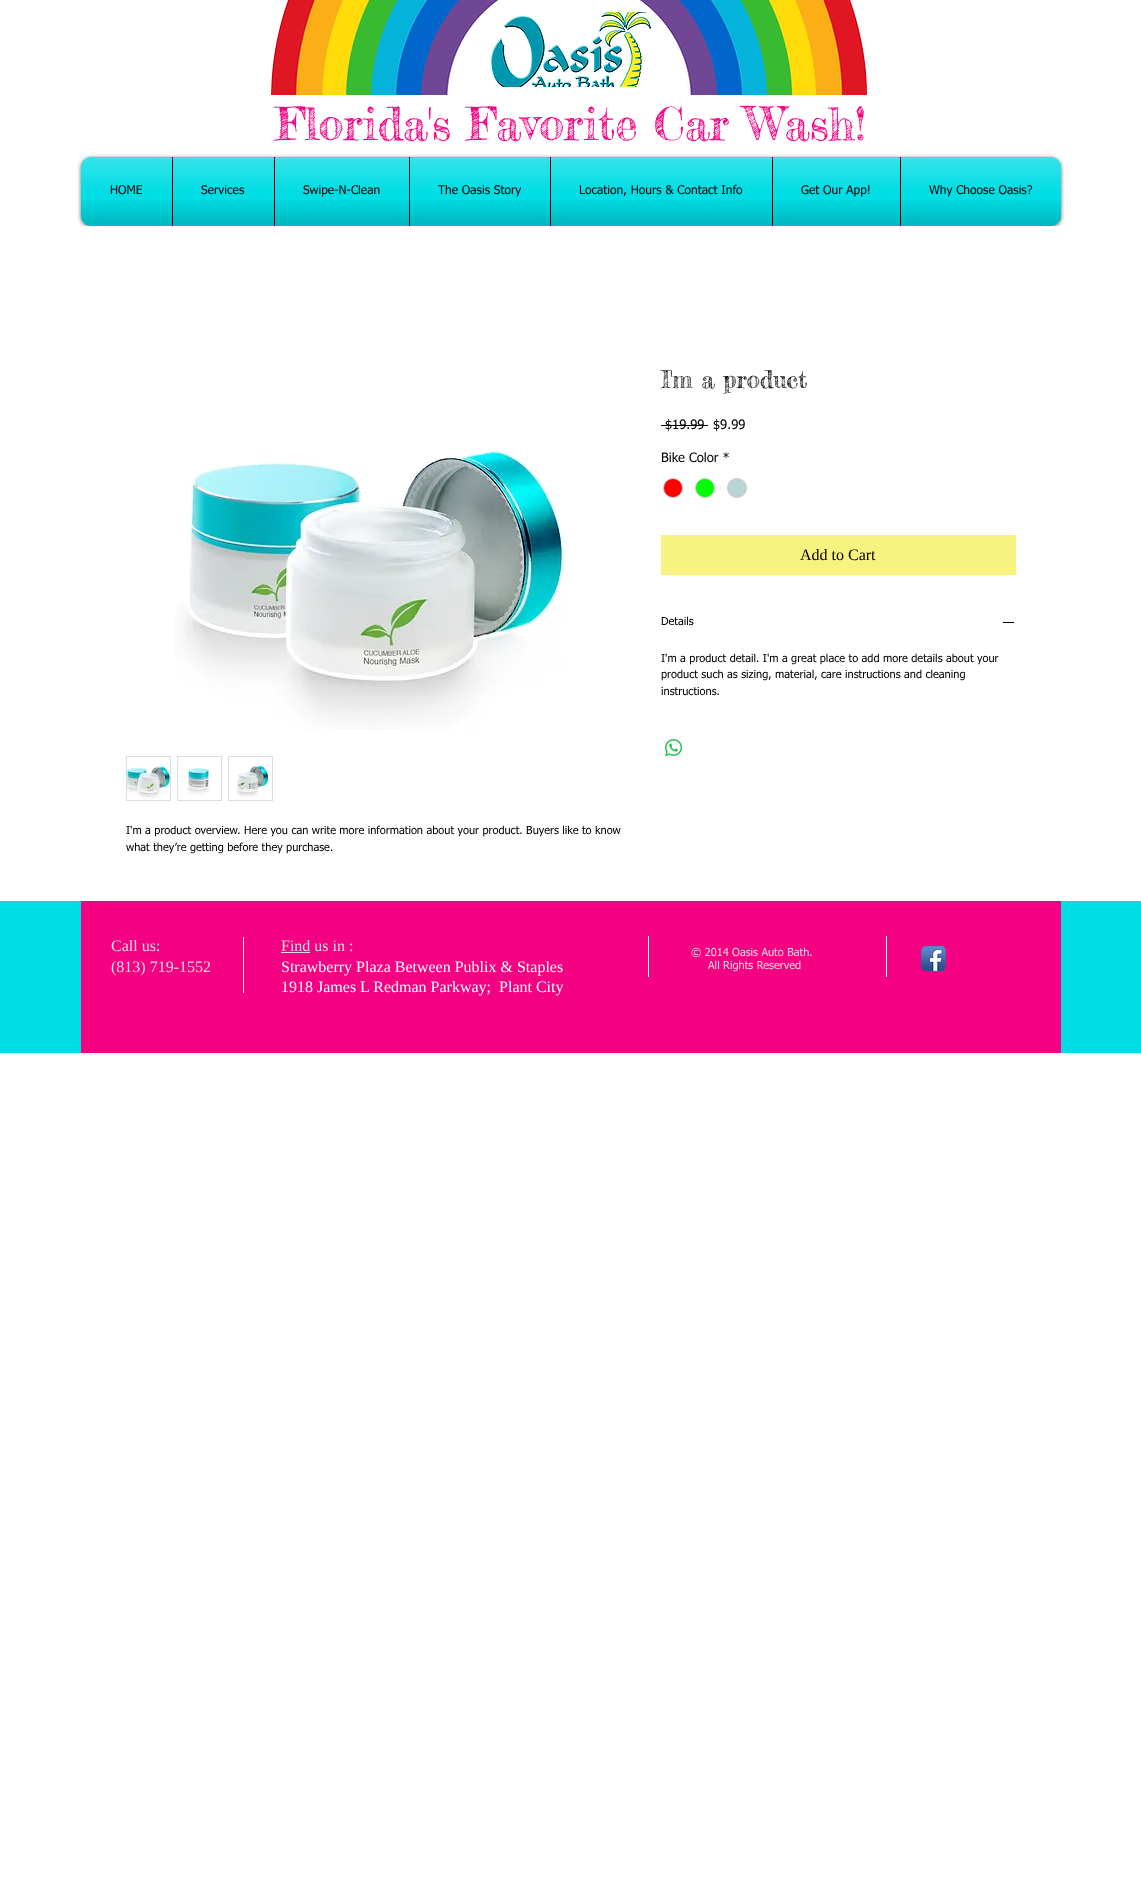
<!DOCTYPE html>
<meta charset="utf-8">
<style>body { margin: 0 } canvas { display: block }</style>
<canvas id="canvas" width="1141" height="1881"></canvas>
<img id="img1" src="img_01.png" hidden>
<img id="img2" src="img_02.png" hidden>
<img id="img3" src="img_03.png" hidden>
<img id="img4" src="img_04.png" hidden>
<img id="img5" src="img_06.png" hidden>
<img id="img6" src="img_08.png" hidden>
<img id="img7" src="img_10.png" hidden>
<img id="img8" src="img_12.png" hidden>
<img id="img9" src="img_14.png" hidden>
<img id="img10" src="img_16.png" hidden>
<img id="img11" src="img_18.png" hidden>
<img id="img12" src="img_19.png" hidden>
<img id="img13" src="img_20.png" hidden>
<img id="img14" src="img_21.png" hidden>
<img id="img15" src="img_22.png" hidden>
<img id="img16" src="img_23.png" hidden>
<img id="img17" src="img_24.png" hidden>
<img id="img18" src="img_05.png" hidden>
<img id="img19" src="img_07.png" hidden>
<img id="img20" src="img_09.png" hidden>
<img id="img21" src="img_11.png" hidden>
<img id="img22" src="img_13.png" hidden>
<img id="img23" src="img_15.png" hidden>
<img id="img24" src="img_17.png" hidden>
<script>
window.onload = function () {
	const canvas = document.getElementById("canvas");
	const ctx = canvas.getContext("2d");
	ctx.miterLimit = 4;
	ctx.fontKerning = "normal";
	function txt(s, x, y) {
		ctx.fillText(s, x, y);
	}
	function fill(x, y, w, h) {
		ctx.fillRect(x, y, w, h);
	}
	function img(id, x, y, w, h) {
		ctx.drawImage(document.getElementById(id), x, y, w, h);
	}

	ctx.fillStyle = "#FFFFFF";
	fill(0, 0, 1141, 1881);
	img("img1", 271, 0, 596, 95);
	img("img2", 491, 12, 160, 75);
	ctx.fillStyle = "rgba(0, 0, 0, 0.6)";
	ctx.filter = "blur(2px)";
	ctx.beginPath();
	ctx.roundRect(81, 158, 980, 69, 10);
	ctx.fill();
	ctx.filter = "none";
	img("img3", 81, 157, 980, 10);
	img("img4", 81, 216, 980, 10);
	ctx.fillStyle = "#00DDE5";
	ctx.beginPath();
	ctx.roundRect(81, 157, 91, 69, [10, 0, 0, 10]);
	ctx.fill();
	img("img5", 81, 200, 91, 26);
	fill(173, 157, 101, 69);
	ctx.fillStyle = "#000000";
	fill(172, 157, 1, 69);
	img("img6", 173, 200, 101, 26);
	ctx.fillStyle = "#00DDE5";
	fill(275, 157, 134, 69);
	ctx.fillStyle = "#000000";
	fill(274, 157, 1, 69);
	img("img7", 275, 200, 134, 26);
	ctx.fillStyle = "#00DDE5";
	fill(410, 157, 140, 69);
	ctx.fillStyle = "#000000";
	fill(409, 157, 1, 69);
	img("img8", 410, 200, 140, 26);
	ctx.fillStyle = "#00DDE5";
	fill(551, 157, 221, 69);
	ctx.fillStyle = "#000000";
	fill(550, 157, 1, 69);
	img("img9", 551, 200, 221, 26);
	ctx.fillStyle = "#00DDE5";
	fill(773, 157, 127, 69);
	ctx.fillStyle = "#000000";
	fill(772, 157, 1, 69);
	img("img10", 773, 200, 127, 26);
	ctx.fillStyle = "#00DDE5";
	ctx.beginPath();
	ctx.roundRect(900, 157, 161, 69, [0, 10, 10, 0]);
	ctx.fill();
	ctx.fillStyle = "#000000";
	fill(900, 157, 1, 69);
	img("img11", 901, 200, 160, 26);
	ctx.fillStyle = "#FFFFFF";
	fill(81, 226, 980, 5);
	ctx.fillStyle = "#000000";
	fill(661, 425, 47, 1);
	ctx.fillStyle = "#FF0000";
	ctx.beginPath();
	ctx.arc(673, 488, 9.5, 0, Math.PI * 2);
	ctx.fill();
	ctx.strokeStyle = "#C9C9C9";
	ctx.stroke();
	ctx.fillStyle = "#00FF00";
	ctx.beginPath();
	ctx.arc(705, 488, 9.5, 0, Math.PI * 2);
	ctx.fill();
	ctx.stroke();
	ctx.fillStyle = "#BAD6D2";
	ctx.beginPath();
	ctx.arc(737, 488, 9.5, 0, Math.PI * 2);
	ctx.fill();
	ctx.stroke();
	ctx.fillStyle = "#F8F281";
	fill(661, 535, 355, 40);
	ctx.fillStyle = "#000000";
	fill(1003, 622, 11, 1);
	img("img12", 665, 739, 17, 17);
	img("img13", 175, 447, 392, 284);
	ctx.fillStyle = "#DDDDDD";
	fill(126, 756, 45, 45);
	img("img14", 127, 757, 43, 43);
	fill(177, 756, 45, 45);
	img("img15", 178, 757, 43, 43);
	fill(228, 756, 45, 45);
	img("img16", 229, 757, 43, 43);
	ctx.fillStyle = "#00DDE5";
	fill(0, 901, 1141, 152);
	ctx.fillStyle = "#F40082";
	fill(81, 901, 980, 152);
	ctx.fillStyle = "#FFFFFF";
	fill(243, 937, 1, 56);
	ctx.fillStyle = "#DDDDDD";
	fill(281, 952, 29, 1);
	ctx.fillStyle = "#FFFFFF";
	fill(648, 936, 1, 41);
	fill(886, 936, 1, 41);
	img("img17", 921, 946, 25, 25);
	ctx.font = "45px Fredericka the Great";
	ctx.fillStyle = "#F40082";
	txt("Florida's Favorite Car Wash!", 276, 140);
	ctx.font = "12px tahoma";
	ctx.fillStyle = "#000000";
	txt("HOME", 110, 194);
	img("img18", 81, 157, 91, 33);
	txt("Services", 201, 194);
	img("img19", 173, 157, 101, 33);
	txt("Swipe-N-Clean", 303, 194);
	img("img20", 275, 157, 134, 33);
	txt("The Oasis Story", 438, 194);
	img("img21", 410, 157, 140, 33);
	txt("Location, Hours & Contact Info", 579, 194);
	img("img22", 551, 157, 221, 33);
	txt("Get Our App!", 801, 194);
	img("img23", 773, 157, 127, 33);
	txt("Why Choose Oasis?", 929, 194);
	img("img24", 901, 157, 160, 33);
	ctx.font = "24px Fredericka the Great";
	txt("I'm a product", 661, 388);
	ctx.font = "13px tahoma";
	txt("$19.99", 665, 429);
	txt("$9.99", 713, 429);
	txt("Bike Color *", 661, 462);
	ctx.font = "16px Liberation Serif";
	txt("Add to Cart", 800, 560);
	ctx.font = "11px tahoma";
	txt("Details", 661, 625);
	txt("I'm a product detail. I'm a great place to add more details about your", 661, 662);
	txt("product such as sizing, material, care instructions and cleaning", 661, 678);
	txt("instructions.", 661, 695);
	txt("I'm a product overview. Here you can write more information about your product. Buyers like to know", 126, 834);
	txt("what they’re getting before they purchase.", 126, 851);
	ctx.font = "16px Liberation Serif";
	ctx.fillStyle = "#DDDDDD";
	txt("Call us:", 111, 951);
	txt("(813) 719-1552", 111, 972);
	txt("Find us in :", 281, 951);
	ctx.fillStyle = "#FFFFFF";
	txt("Strawberry Plaza Between Publix & Staples", 281, 972);
	txt("1918 James L Redman Parkway;  Plant City", 281, 992);
	ctx.font = "11px tahoma";
	ctx.fillStyle = "#DDDDDD";
	txt("© 2014 Oasis Auto Bath.", 691, 956);
	txt("All Rights Reserved", 708, 969);
};
</script>
